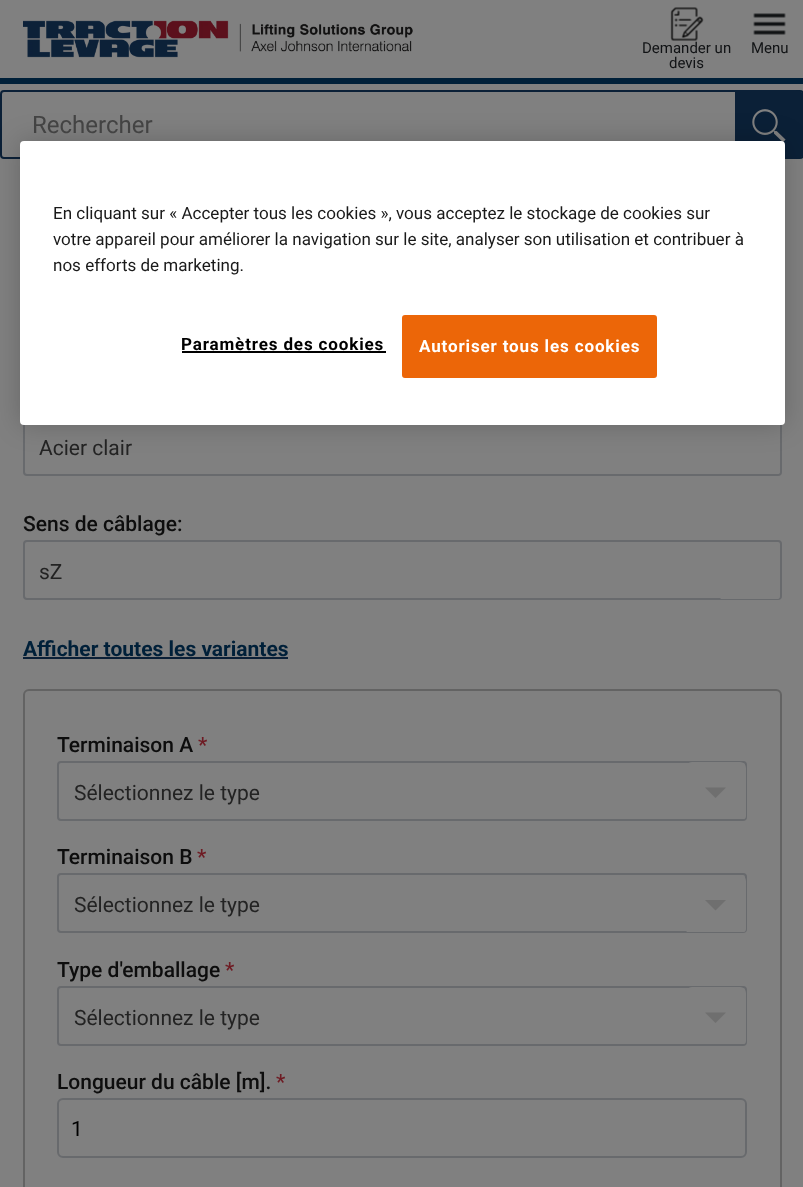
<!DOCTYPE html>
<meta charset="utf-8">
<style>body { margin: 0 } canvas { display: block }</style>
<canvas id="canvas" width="803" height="1187"></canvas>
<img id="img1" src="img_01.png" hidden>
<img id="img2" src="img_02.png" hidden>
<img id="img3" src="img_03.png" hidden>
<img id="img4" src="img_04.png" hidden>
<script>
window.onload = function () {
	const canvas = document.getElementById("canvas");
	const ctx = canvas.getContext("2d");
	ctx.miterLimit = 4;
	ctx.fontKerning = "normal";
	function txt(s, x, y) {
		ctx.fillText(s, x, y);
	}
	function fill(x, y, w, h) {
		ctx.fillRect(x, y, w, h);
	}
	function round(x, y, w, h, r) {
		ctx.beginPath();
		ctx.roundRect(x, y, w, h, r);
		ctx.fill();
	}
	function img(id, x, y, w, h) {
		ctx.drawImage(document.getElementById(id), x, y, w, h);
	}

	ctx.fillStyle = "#808080";
	fill(0, 0, 803, 1187);
	ctx.fillStyle = "#002039";
	fill(0, 78, 803, 6);
	img("img1", 23, 20, 390, 38);
	img("img2", 670, 7, 34, 34);
	img("img3", 753, 13, 33, 22);
	ctx.beginPath();
	ctx.roundRect(1, 91, 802, 67, 3);
	ctx.strokeStyle = "#0B2037";
	ctx.lineWidth = 2;
	ctx.stroke();
	ctx.fillStyle = "#0B2037";
	ctx.beginPath();
	ctx.moveTo(735, 90);
	ctx.lineTo(796, 90);
	ctx.bezierCurveTo(800.5, 90, 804, 93.5, 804, 98);
	ctx.lineTo(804, 151);
	ctx.bezierCurveTo(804, 155.5, 800.5, 159, 796, 159);
	ctx.lineTo(735, 159);
	ctx.closePath();
	ctx.fill();
	img("img4", 752, 109, 34, 33);
	ctx.beginPath();
	ctx.roundRect(24, 417, 757, 58, 3);
	ctx.strokeStyle = "#686A6D";
	ctx.stroke();
	ctx.save();
	ctx.beginPath();
	ctx.roundRect(24, 417, 756, 57, 2);
	ctx.clip();
	ctx.fillStyle = "#808080";
	round(720, 417, 60, 60, 6);
	ctx.restore();
	ctx.fillStyle = "rgba(0, 0, 0, 0.2)";
	ctx.filter = "blur(13.5px)";
	ctx.beginPath();
	ctx.roundRect(20, 141, 765, 284, 4);
	ctx.fill();
	ctx.filter = "none";
	ctx.fillStyle = "#FFFFFF";
	round(20, 141, 765, 284, 4);
	ctx.fillStyle = "#000000";
	fill(182, 351, 204, 2);
	ctx.fillStyle = "#EC6608";
	ctx.beginPath();
	ctx.roundRect(403, 316, 253, 61, 2);
	ctx.fill();
	ctx.strokeStyle = "#EC6608";
	ctx.stroke();
	ctx.beginPath();
	ctx.roundRect(24, 541, 757, 58, 3);
	ctx.strokeStyle = "#686A6D";
	ctx.stroke();
	ctx.save();
	ctx.beginPath();
	ctx.roundRect(24, 542, 756, 57, 2);
	ctx.clip();
	ctx.fillStyle = "#808080";
	round(720, 542, 60, 60, 6);
	ctx.restore();
	ctx.fillStyle = "#0B2037";
	fill(23, 657, 265, 2);
	ctx.beginPath();
	ctx.roundRect(24, 690, 757, 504, 5);
	ctx.strokeStyle = "#636363";
	ctx.stroke();
	ctx.beginPath();
	ctx.roundRect(58, 762, 688, 58, 3);
	ctx.strokeStyle = "#686A6D";
	ctx.stroke();
	ctx.save();
	ctx.beginPath();
	ctx.roundRect(59, 762, 687, 57, 2);
	ctx.clip();
	ctx.fillStyle = "#808080";
	round(686, 762, 60, 60, 6);
	ctx.restore();
	ctx.fillStyle = "#6F6F6F";
	ctx.beginPath();
	ctx.moveTo(705, 787.5);
	ctx.lineTo(726, 787.5);
	ctx.lineTo(715.5, 798);
	ctx.closePath();
	ctx.fill();
	ctx.beginPath();
	ctx.roundRect(58, 874, 688, 58, 3);
	ctx.stroke();
	ctx.save();
	ctx.beginPath();
	ctx.roundRect(59, 875, 687, 57, 2);
	ctx.clip();
	ctx.fillStyle = "#808080";
	round(686, 875, 60, 60, 6);
	ctx.restore();
	ctx.beginPath();
	ctx.moveTo(705, 900);
	ctx.lineTo(726, 900);
	ctx.lineTo(715.5, 910.5);
	ctx.closePath();
	ctx.fill();
	ctx.beginPath();
	ctx.roundRect(58, 987, 688, 58, 3);
	ctx.stroke();
	ctx.save();
	ctx.beginPath();
	ctx.roundRect(59, 987, 687, 57, 2);
	ctx.clip();
	ctx.fillStyle = "#808080";
	round(686, 987, 60, 60, 6);
	ctx.restore();
	ctx.beginPath();
	ctx.moveTo(705, 1012.5);
	ctx.lineTo(726, 1012.5);
	ctx.lineTo(715.5, 1023);
	ctx.closePath();
	ctx.fill();
	ctx.beginPath();
	ctx.roundRect(58, 1099, 688, 58, 5);
	ctx.stroke();
	ctx.font = "15px Roboto";
	ctx.fillStyle = "#111315";
	txt("Demander un", 642, 53);
	txt("devis", 669, 68);
	txt("Menu", 751, 53);
	ctx.font = "24px Roboto";
	ctx.fillStyle = "#434343";
	txt("Rechercher", 32, 133);
	ctx.font = "17.05px Roboto";
	ctx.fillStyle = "#1A1A1A";
	txt("En cliquant sur « Accepter tous les cookies », vous acceptez le stockage de cookies sur", 53, 219);
	txt("votre appareil pour améliorer la navigation sur le site, analyser son utilisation et contribuer à", 53, 245);
	txt("nos efforts de marketing.", 53, 271);
	ctx.letterSpacing = "0.85px";
	ctx.font = "bold 17.05px Roboto";
	ctx.fillStyle = "#000000";
	txt("Paramètres des cookies", 181, 350);
	ctx.fillStyle = "#FFFFFF";
	txt("Autoriser tous les cookies", 419, 352);
	ctx.letterSpacing = "0px";
	ctx.font = "21px Roboto";
	ctx.fillStyle = "#232323";
	txt("Acier clair", 39, 455);
	ctx.font = "500 21px Roboto";
	ctx.fillStyle = "#0D0D0D";
	txt("Sens de câblage:", 23, 531);
	ctx.font = "21px Roboto";
	ctx.fillStyle = "#232323";
	txt("sZ", 39, 579);
	ctx.font = "bold 21px Roboto";
	ctx.fillStyle = "#002039";
	txt("Afficher toutes les variantes", 23, 656);
	ctx.font = "500 21px Roboto";
	ctx.fillStyle = "#0D0D0D";
	txt("Terminaison A", 57, 752);
	ctx.fillStyle = "#6E1B23";
	txt("*", 198, 752);
	ctx.font = "21px Roboto";
	ctx.fillStyle = "#232323";
	txt("Sélectionnez le type", 74, 800);
	ctx.font = "500 21px Roboto";
	ctx.fillStyle = "#0D0D0D";
	txt("Terminaison B", 57, 864);
	ctx.fillStyle = "#6E1B23";
	txt("*", 197, 864);
	ctx.font = "21px Roboto";
	ctx.fillStyle = "#232323";
	txt("Sélectionnez le type", 74, 912);
	ctx.font = "500 21px Roboto";
	ctx.fillStyle = "#0D0D0D";
	txt("Type d'emballage", 57, 977);
	ctx.fillStyle = "#6E1B23";
	txt("*", 225, 977);
	ctx.font = "21px Roboto";
	ctx.fillStyle = "#232323";
	txt("Sélectionnez le type", 74, 1025);
	ctx.font = "500 21px Roboto";
	ctx.fillStyle = "#0D0D0D";
	txt("Longueur du câble [m].", 57, 1089);
	ctx.fillStyle = "#6E1B23";
	txt("*", 276, 1089);
	ctx.font = "21px Roboto";
	ctx.fillStyle = "#000000";
	txt("1", 71, 1136);
};
</script>
